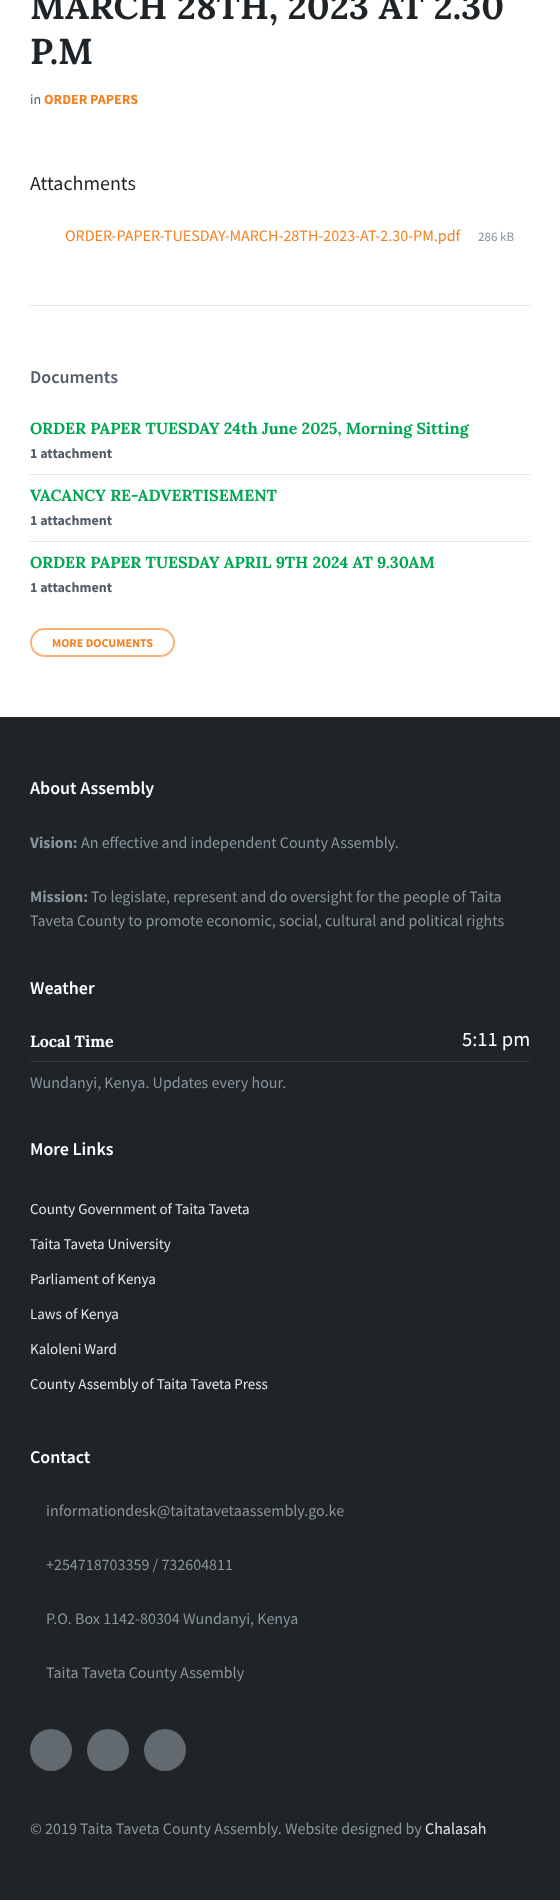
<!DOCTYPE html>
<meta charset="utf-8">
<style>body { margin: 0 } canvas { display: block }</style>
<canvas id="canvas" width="560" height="1900"></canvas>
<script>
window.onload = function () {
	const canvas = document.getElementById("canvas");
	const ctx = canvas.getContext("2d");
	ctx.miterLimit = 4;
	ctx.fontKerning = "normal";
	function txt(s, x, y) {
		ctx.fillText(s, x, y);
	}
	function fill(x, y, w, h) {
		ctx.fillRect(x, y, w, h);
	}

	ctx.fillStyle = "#FFFFFF";
	fill(0, 0, 560, 1900);
	ctx.fillStyle = "#E1E7EC";
	fill(30, 305, 500, 1);
	fill(30, 474, 500, 1);
	fill(30, 541, 500, 1);
	ctx.beginPath();
	ctx.roundRect(31, 629, 143, 27, 13.5);
	ctx.strokeStyle = "#FAB37A";
	ctx.lineWidth = 2;
	ctx.stroke();
	ctx.fillStyle = "#1E2427";
	fill(0, 717, 560, 1183);
	ctx.fillStyle = "#353A3D";
	fill(30, 1061, 500, 1);
	ctx.fillStyle = "#626A70";
	ctx.beginPath();
	ctx.arc(51, 1750, 21, 0, Math.PI * 2);
	ctx.fill();
	ctx.beginPath();
	ctx.arc(108, 1750, 21, 0, Math.PI * 2);
	ctx.fill();
	ctx.beginPath();
	ctx.arc(165, 1750, 21, 0, Math.PI * 2);
	ctx.fill();
	ctx.font = "bold 36px Lora";
	ctx.fillStyle = "#1E2427";
	txt("MARCH 28TH, 2023 AT 2.30", 30, 19);
	txt("P.M", 30, 64);
	ctx.font = "14px Source Sans Pro";
	ctx.fillStyle = "#545E69";
	txt("in", 30, 104);
	ctx.font = "bold 14px Source Sans Pro";
	ctx.fillStyle = "#F68122";
	txt("ORDER PAPERS", 44, 104);
	ctx.font = "20px Source Sans Pro";
	ctx.fillStyle = "#1E2427";
	txt("Attachments", 30, 190);
	ctx.font = "16px Source Sans Pro";
	ctx.fillStyle = "#F68122";
	txt("ORDER-PAPER-TUESDAY-MARCH-28TH-2023-AT-2.30-PM.pdf", 65, 241);
	ctx.font = "13px Source Sans Pro";
	ctx.fillStyle = "#8A949B";
	txt("286 kB", 478, 241);
	ctx.font = "600 18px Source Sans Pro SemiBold";
	ctx.fillStyle = "#545E69";
	txt("Documents", 30, 383);
	ctx.font = "bold 16px Lora";
	ctx.fillStyle = "#00A752";
	txt("ORDER PAPER TUESDAY 24th June 2025, Morning Sitting", 30, 434);
	ctx.font = "bold 14px Source Sans Pro";
	ctx.fillStyle = "#545E69";
	txt("1 attachment", 30, 458);
	ctx.font = "bold 16px Lora";
	ctx.fillStyle = "#00A752";
	txt("VACANCY RE-ADVERTISEMENT", 30, 501);
	ctx.font = "bold 14px Source Sans Pro";
	ctx.fillStyle = "#545E69";
	txt("1 attachment", 30, 525);
	ctx.font = "bold 16px Lora";
	ctx.fillStyle = "#00A752";
	txt("ORDER PAPER TUESDAY APRIL 9TH 2024 AT 9.30AM", 30, 568);
	ctx.font = "bold 14px Source Sans Pro";
	ctx.fillStyle = "#545E69";
	txt("1 attachment", 30, 592);
	ctx.font = "bold 12px Source Sans Pro";
	ctx.fillStyle = "#F68122";
	txt("MORE DOCUMENTS", 52, 647);
	ctx.font = "600 18px Source Sans Pro SemiBold";
	ctx.fillStyle = "#FFFFFF";
	txt("About Assembly", 30, 794);
	ctx.font = "bold 16px Source Sans Pro";
	ctx.fillStyle = "#8A949B";
	txt("Vision:", 30, 848);
	ctx.font = "16px Source Sans Pro";
	txt("An effective and independent County Assembly.", 81, 848);
	ctx.font = "bold 16px Source Sans Pro";
	txt("Mission:", 30, 902);
	ctx.font = "16px Source Sans Pro";
	txt("To legislate, represent and do oversight for the people of Taita", 91, 902);
	txt("Taveta County to promote economic, social, cultural and political rights", 30, 926);
	ctx.font = "600 18px Source Sans Pro SemiBold";
	ctx.fillStyle = "#FFFFFF";
	txt("Weather", 30, 994);
	ctx.font = "bold 16px Lora";
	txt("Local Time", 30, 1047);
	ctx.font = "20.5px Source Sans Pro";
	txt("5:11 pm", 462, 1046);
	ctx.font = "16px Source Sans Pro";
	ctx.fillStyle = "#8A949B";
	txt("Wundanyi, Kenya. Updates every hour.", 30, 1088);
	ctx.font = "600 18px Source Sans Pro SemiBold";
	ctx.fillStyle = "#FFFFFF";
	txt("More Links", 30, 1155);
	ctx.font = "15px Source Sans Pro";
	ctx.fillStyle = "#E1E7EC";
	txt("County Government of Taita Taveta", 30, 1214);
	txt("Taita Taveta University", 30, 1249);
	txt("Parliament of Kenya", 30, 1284);
	txt("Laws of Kenya", 30, 1319);
	txt("Kaloleni Ward", 30, 1354);
	txt("County Assembly of Taita Taveta Press", 30, 1389);
	ctx.font = "600 18px Source Sans Pro SemiBold";
	ctx.fillStyle = "#FFFFFF";
	txt("Contact", 30, 1463);
	ctx.font = "16px Source Sans Pro";
	ctx.fillStyle = "#8A949B";
	txt("informationdesk@taitatavetaassembly.go.ke", 46, 1516);
	txt("+254718703359 / 732604811", 46, 1570);
	txt("P.O. Box 1142-80304 Wundanyi, Kenya", 46, 1624);
	txt("Taita Taveta County Assembly", 46, 1678);
	txt("© 2019 Taita Taveta County Assembly. Website designed by", 30, 1834);
	ctx.fillStyle = "#E1E7EC";
	txt("Chalasah", 425, 1834);
};
</script>
